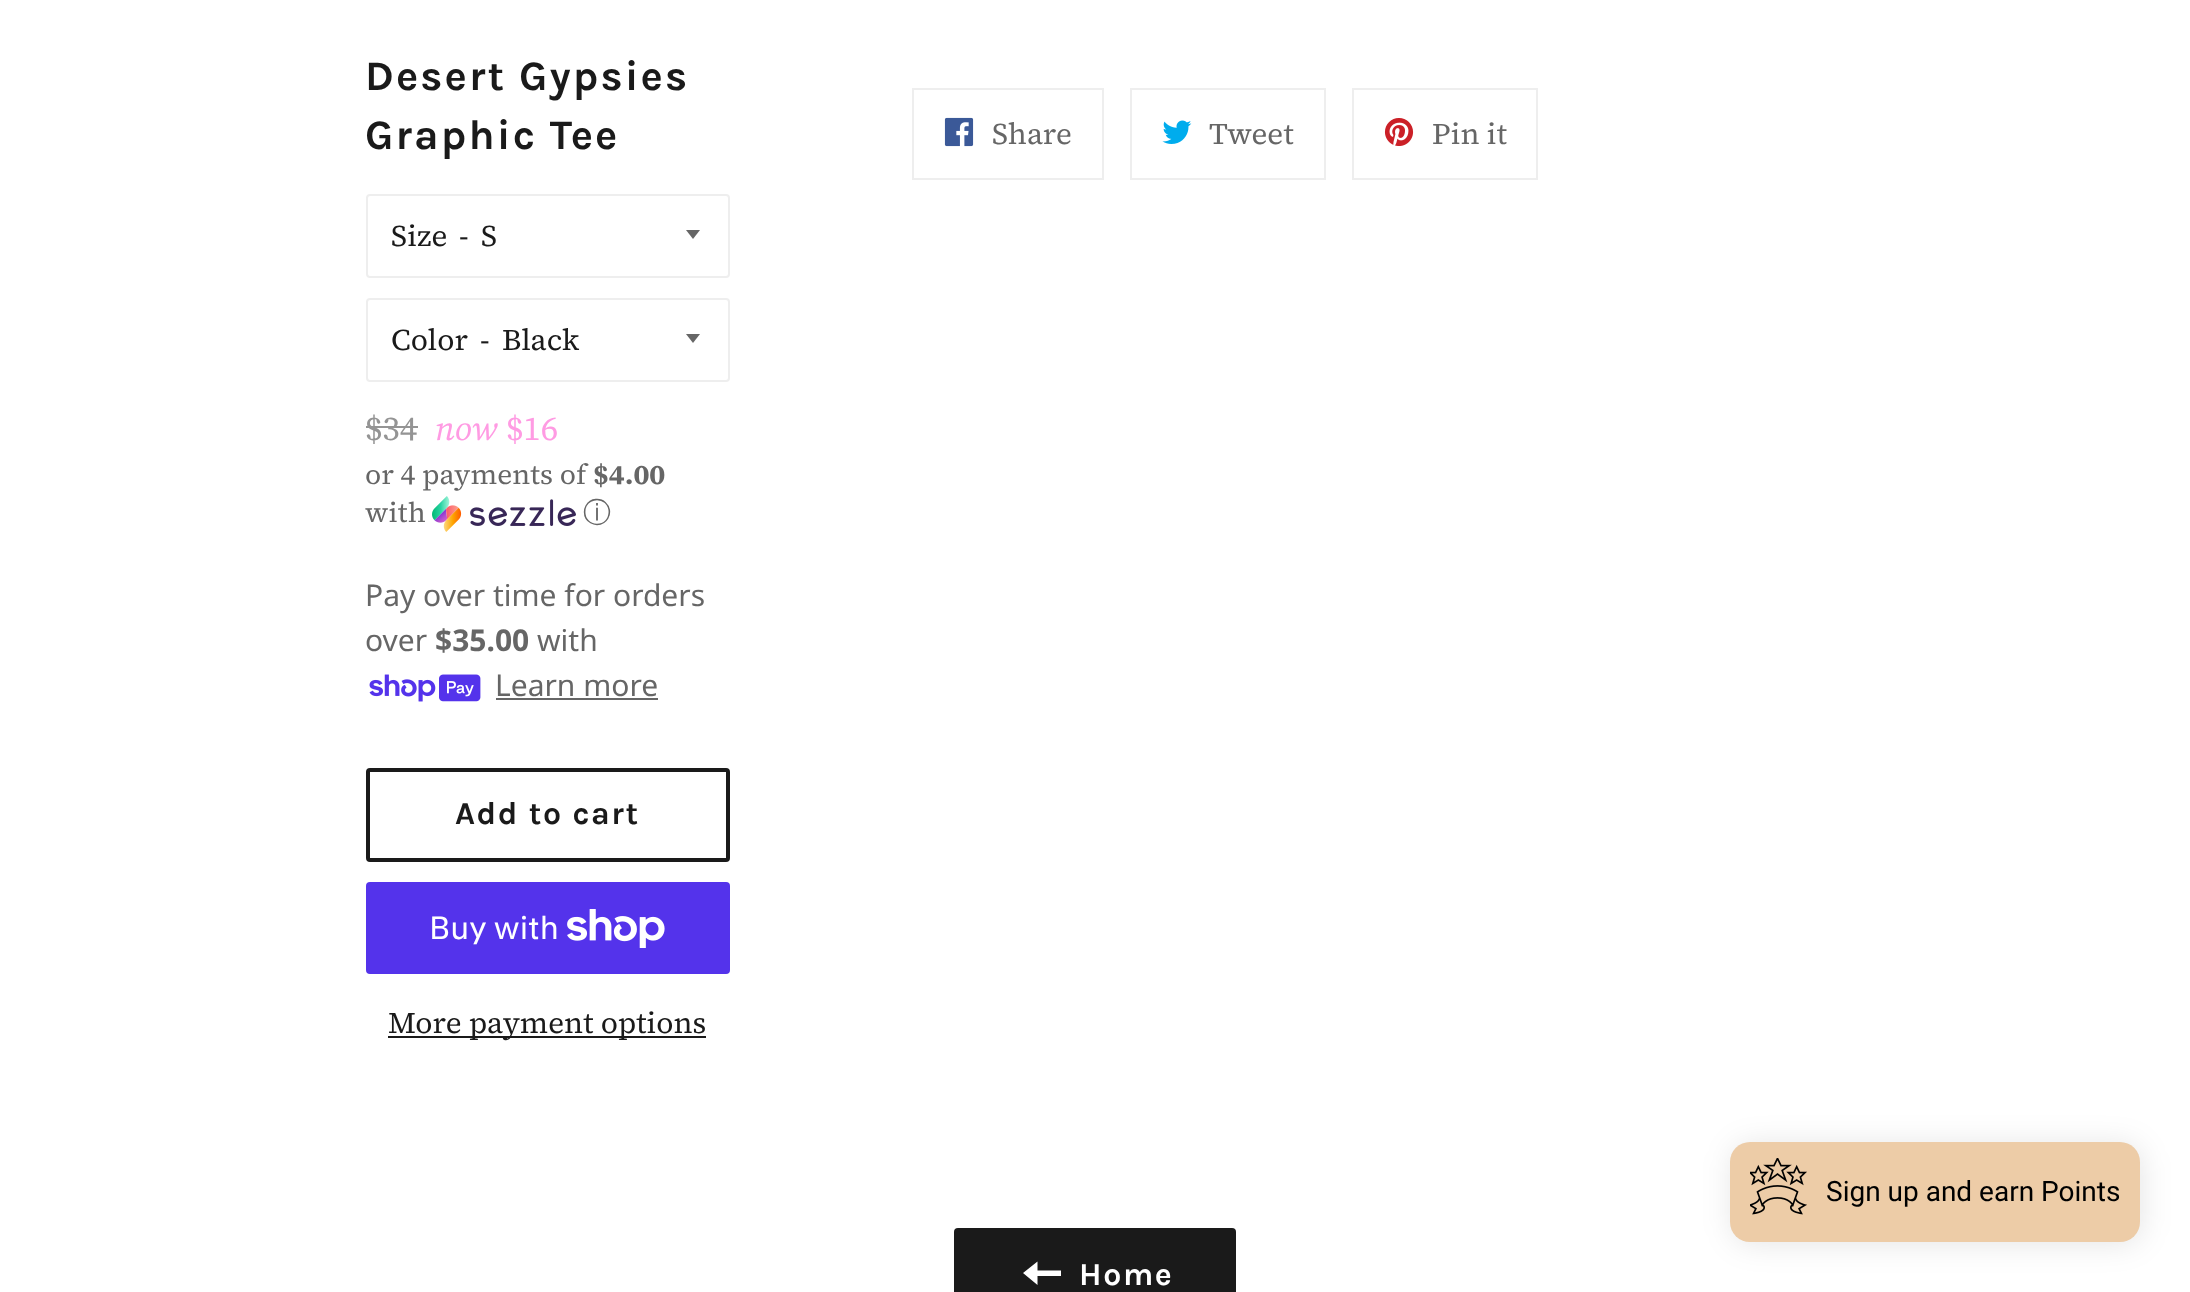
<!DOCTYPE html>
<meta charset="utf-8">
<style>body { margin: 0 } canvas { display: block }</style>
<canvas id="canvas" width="2190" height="1292"></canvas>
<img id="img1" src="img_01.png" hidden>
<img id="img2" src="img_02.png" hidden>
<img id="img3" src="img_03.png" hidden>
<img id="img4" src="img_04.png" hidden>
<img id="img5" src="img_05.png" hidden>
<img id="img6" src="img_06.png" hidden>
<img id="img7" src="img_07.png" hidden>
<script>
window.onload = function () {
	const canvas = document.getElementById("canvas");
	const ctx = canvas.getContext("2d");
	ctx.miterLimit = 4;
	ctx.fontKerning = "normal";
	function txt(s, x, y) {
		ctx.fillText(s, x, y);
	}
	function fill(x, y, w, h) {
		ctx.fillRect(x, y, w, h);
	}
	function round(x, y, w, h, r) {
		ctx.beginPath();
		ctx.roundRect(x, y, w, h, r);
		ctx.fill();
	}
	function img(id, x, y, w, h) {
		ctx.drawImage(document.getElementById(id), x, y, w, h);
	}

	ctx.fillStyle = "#FFFFFF";
	fill(0, 0, 2190, 1292);
	ctx.beginPath();
	ctx.roundRect(367, 195, 362, 82, 3);
	ctx.strokeStyle = "#EEEEEE";
	ctx.lineWidth = 2;
	ctx.stroke();
	ctx.fillStyle = "#666666";
	ctx.beginPath();
	ctx.moveTo(686, 230);
	ctx.lineTo(693, 239);
	ctx.lineTo(700, 230);
	ctx.closePath();
	ctx.fill();
	ctx.beginPath();
	ctx.roundRect(367, 299, 362, 82, 3);
	ctx.stroke();
	ctx.beginPath();
	ctx.moveTo(686, 334);
	ctx.lineTo(693, 343);
	ctx.lineTo(700, 334);
	ctx.closePath();
	ctx.fill();
	ctx.fillStyle = "#949494";
	fill(366, 426, 52, 2);
	img("img1", 432, 496, 144, 36);
	img("img2", 369, 674, 112, 28);
	ctx.fillStyle = "#666666";
	fill(496, 698, 162, 2);
	ctx.beginPath();
	ctx.roundRect(368, 770, 360, 90, 2);
	ctx.strokeStyle = "#1A1A1A";
	ctx.lineWidth = 4;
	ctx.stroke();
	ctx.fillStyle = "#5433EB";
	round(366, 882, 364, 92, 4);
	img("img3", 567, 909, 98, 39);
	ctx.fillStyle = "#1A1A1A";
	fill(388, 1036, 318, 2);
	ctx.strokeStyle = "#EEEEEE";
	ctx.lineWidth = 2;
	ctx.strokeRect(913, 89, 190, 90);
	img("img4", 944, 117, 30, 30);
	ctx.strokeRect(1131, 89, 194, 90);
	img("img5", 1162, 120, 30, 24);
	ctx.strokeRect(1353, 89, 184, 90);
	img("img6", 1384, 118, 30, 28);
	round(954, 1228, 282, 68, 4);
	ctx.fillStyle = "#FFFFFF";
	ctx.beginPath();
	ctx.moveTo(1037.5, 1270.5);
	ctx.lineTo(1037.5, 1261.5);
	ctx.lineTo(1023, 1273);
	ctx.lineTo(1037.5, 1285);
	ctx.lineTo(1037.5, 1276);
	ctx.lineTo(1061, 1276);
	ctx.lineTo(1061, 1270.5);
	ctx.closePath();
	ctx.fill();
	ctx.fillStyle = "rgba(0, 0, 0, 0.1)";
	ctx.filter = "blur(15px)";
	ctx.beginPath();
	ctx.roundRect(1732, 1144, 410, 100, 20);
	ctx.fill();
	ctx.filter = "none";
	ctx.fillStyle = "#EDCCA7";
	round(1730, 1142, 410, 100, 20);
	img("img7", 1750, 1158, 57, 57);
	ctx.letterSpacing = "2.1px";
	ctx.font = "bold 42px Karla";
	ctx.fillStyle = "#1A1A1A";
	txt("Desert Gypsies", 365, 90);
	txt("Graphic Tee", 365, 149);
	ctx.letterSpacing = "0px";
	ctx.font = "30px 'Source Serif 4'";
	txt("Size", 391, 246);
	txt("-", 459, 246);
	txt("S", 481, 246);
	txt("Color", 391, 350);
	txt("-", 480, 350);
	txt("Black", 502, 350);
	ctx.font = "34px 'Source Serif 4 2'";
	ctx.fillStyle = "#949494";
	txt("$34", 365, 440);
	ctx.font = "italic 34px 'Source Serif 4'";
	ctx.fillStyle = "#FF9BE3";
	txt("now", 435, 440);
	ctx.font = "34px 'Source Serif 4 2'";
	txt("$16", 506, 440);
	ctx.font = "28px 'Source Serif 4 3'";
	ctx.fillStyle = "#666666";
	txt("or 4 payments of", 365, 484);
	ctx.font = "bold 28px 'Source Serif 4'";
	txt("$4.00", 593, 484);
	ctx.font = "28px 'Source Serif 4 3'";
	txt("with", 365, 522);
	ctx.font = "500 28px WenQuanYi Zen Hei";
	txt("ⓘ", 583, 522);
	ctx.font = "30px Noto Sans";
	txt("Pay over time for orders", 365, 606);
	txt("over", 365, 651);
	ctx.font = "bold 30px Noto Sans";
	txt("$35.00", 435, 651);
	ctx.font = "30px Noto Sans";
	txt("with", 537, 651);
	txt("Learn more", 495, 696);
	ctx.letterSpacing = "1.6px";
	ctx.font = "bold 32px Karla";
	ctx.fillStyle = "#1A1A1A";
	txt("Add to cart", 455, 824);
	ctx.letterSpacing = "0px";
	ctx.font = "32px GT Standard";
	ctx.fillStyle = "#FFFFFF";
	txt("Buy with", 429, 939);
	ctx.font = "30px 'Source Serif 4'";
	ctx.fillStyle = "#1A1A1A";
	txt("More payment options", 388, 1033);
	ctx.fillStyle = "#666666";
	txt("Share", 992, 144);
	txt("Tweet", 1209, 144);
	txt("Pin it", 1432, 144);
	ctx.letterSpacing = "1.6px";
	ctx.font = "bold 32px Karla";
	ctx.fillStyle = "#FFFFFF";
	txt("Home", 1079, 1285);
	ctx.letterSpacing = "0px";
	ctx.font = "28px Roboto";
	ctx.fillStyle = "#000000";
	txt("Sign up and earn Points", 1826, 1201);
};
</script>
